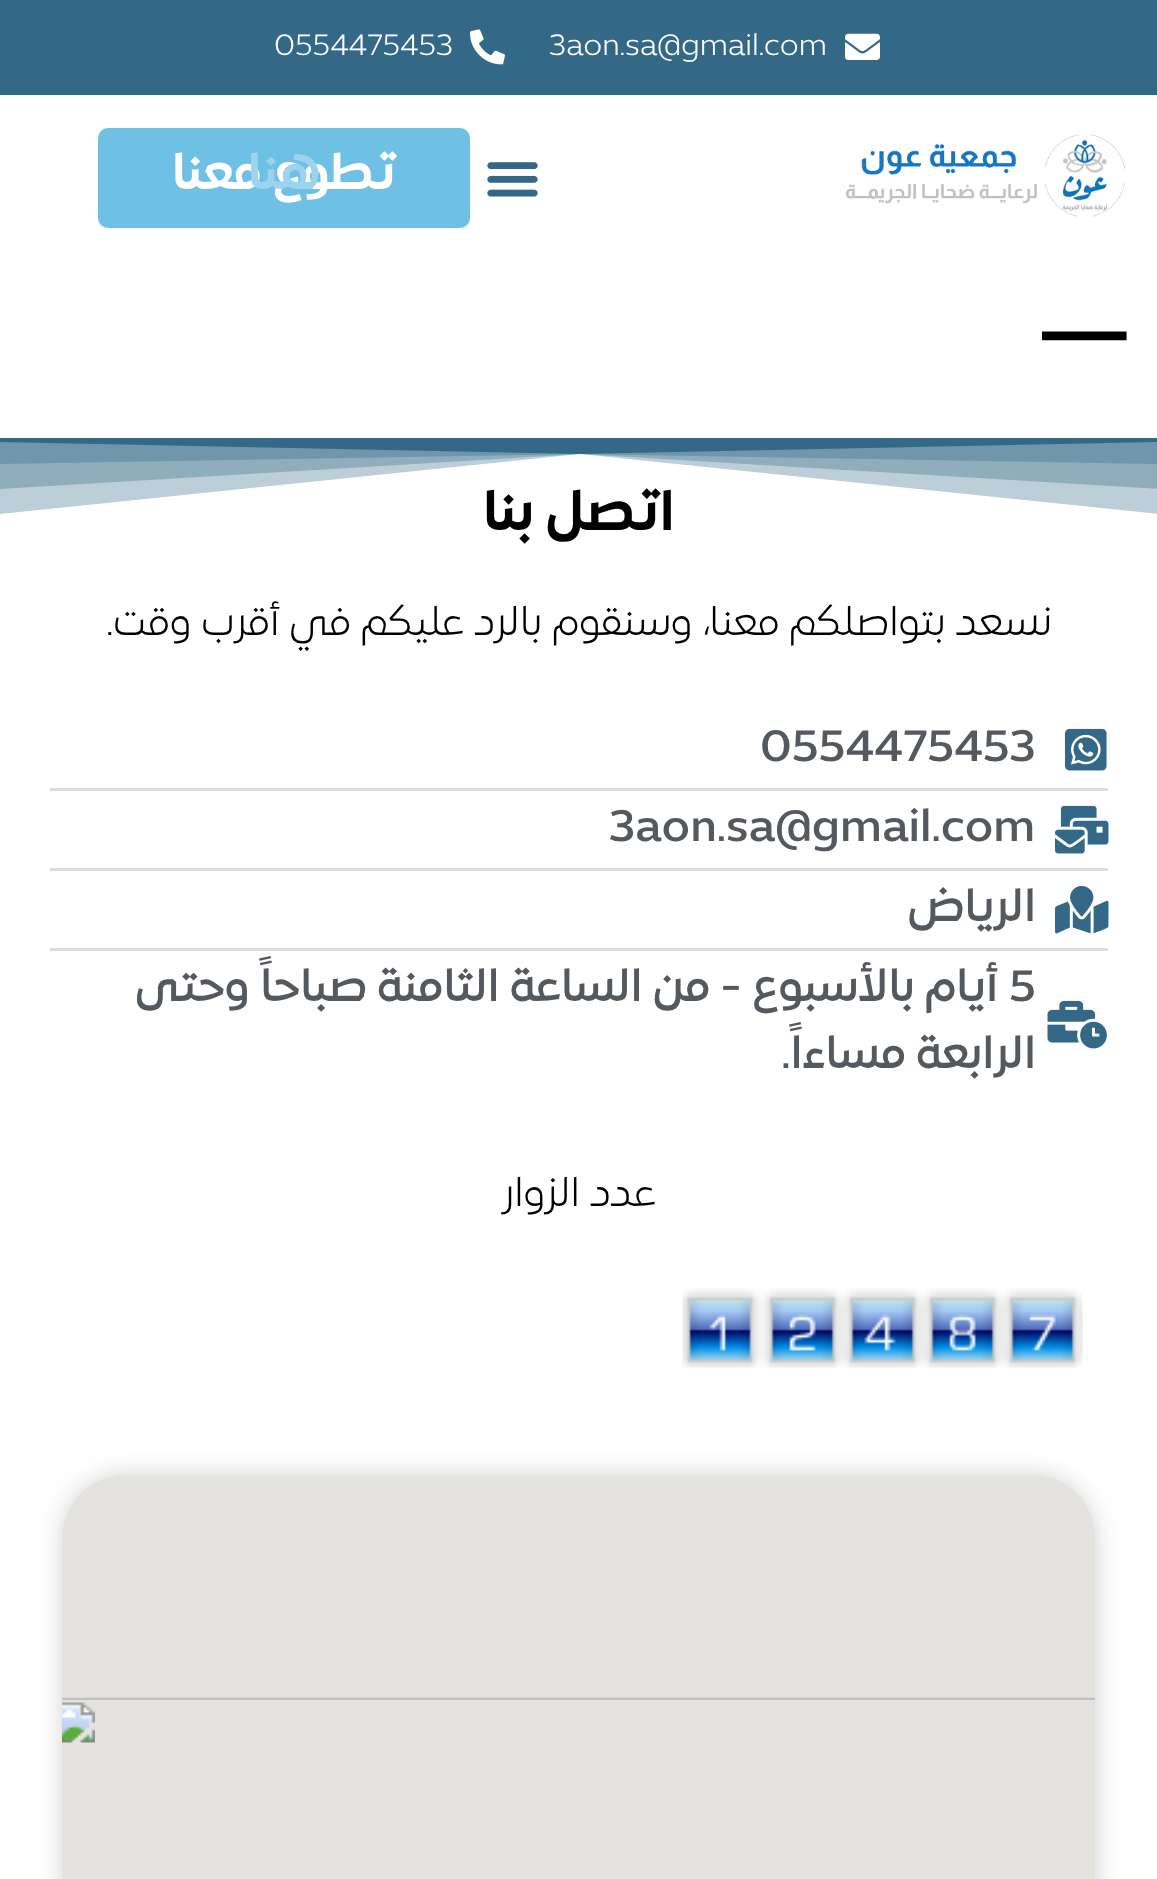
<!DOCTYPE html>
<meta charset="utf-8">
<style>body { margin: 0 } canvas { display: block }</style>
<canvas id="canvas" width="1157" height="1879"></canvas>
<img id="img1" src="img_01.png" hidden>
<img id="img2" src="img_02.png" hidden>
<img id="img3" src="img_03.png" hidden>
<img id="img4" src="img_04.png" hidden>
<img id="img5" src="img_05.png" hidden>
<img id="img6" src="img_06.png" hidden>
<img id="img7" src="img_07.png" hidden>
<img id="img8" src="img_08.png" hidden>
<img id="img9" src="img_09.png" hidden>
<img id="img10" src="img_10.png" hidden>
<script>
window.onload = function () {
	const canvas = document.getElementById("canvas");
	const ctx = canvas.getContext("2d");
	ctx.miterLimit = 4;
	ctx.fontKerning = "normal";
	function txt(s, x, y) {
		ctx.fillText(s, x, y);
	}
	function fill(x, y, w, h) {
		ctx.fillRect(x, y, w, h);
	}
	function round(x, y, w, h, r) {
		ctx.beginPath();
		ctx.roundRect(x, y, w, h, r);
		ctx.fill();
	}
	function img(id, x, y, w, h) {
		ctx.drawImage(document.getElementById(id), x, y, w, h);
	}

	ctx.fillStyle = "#FFFFFF";
	fill(0, 0, 1157, 1879);
	ctx.fillStyle = "#336987";
	fill(0, 0, 1157, 95);
	img("img1", 845, 33, 35, 27);
	img("img2", 470, 29, 35, 36);
	img("img3", 846, 134, 279, 83);
	img("img4", 487, 162, 51, 35);
	ctx.fillStyle = "#6EC1E4";
	round(98, 128, 372, 100, 10);
	ctx.fillStyle = "#BCCED7";
	ctx.beginPath();
	ctx.moveTo(0, 438);
	ctx.lineTo(0, 514);
	ctx.lineTo(580, 454);
	ctx.lineTo(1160, 514);
	ctx.lineTo(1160, 438);
	ctx.closePath();
	ctx.fill();
	ctx.fillStyle = "rgba(51, 105, 135, 0.33)";
	ctx.beginPath();
	ctx.moveTo(0, 438);
	ctx.lineTo(0, 489);
	ctx.lineTo(580, 454);
	ctx.lineTo(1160, 489);
	ctx.lineTo(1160, 438);
	ctx.closePath();
	ctx.fill();
	ctx.fillStyle = "#7096AB";
	ctx.beginPath();
	ctx.moveTo(0, 438);
	ctx.lineTo(0, 464);
	ctx.lineTo(580, 454);
	ctx.lineTo(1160, 464);
	ctx.lineTo(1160, 438);
	ctx.closePath();
	ctx.fill();
	ctx.fillStyle = "#336987";
	ctx.beginPath();
	ctx.moveTo(0, 438);
	ctx.lineTo(0, 442);
	ctx.lineTo(580, 454);
	ctx.lineTo(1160, 442);
	ctx.lineTo(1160, 438);
	ctx.closePath();
	ctx.fill();
	img("img5", 1065, 728, 42, 43);
	ctx.fillStyle = "#DDDDDD";
	fill(50, 788, 1058, 3);
	img("img6", 1055, 805, 54, 49);
	fill(50, 868, 1058, 3);
	img("img7", 1055, 885, 54, 49);
	fill(50, 948, 1058, 3);
	img("img8", 1047, 1000, 60, 49);
	img("img9", 682, 1288, 401, 80);
	ctx.fillStyle = "rgba(0, 0, 0, 0.18)";
	ctx.filter = "blur(12.5px)";
	ctx.beginPath();
	ctx.roundRect(63, 1475, 1032, 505, 63);
	ctx.fill();
	ctx.filter = "none";
	img("img10", 62, 1475, 1033, 404);
	ctx.font = "300 30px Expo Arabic";
	ctx.fillStyle = "#FFFFFF";
	txt("3aon.sa@gmail.com", 549, 55);
	txt("0554475453", 274, 55);
	ctx.direction = "rtl";
	ctx.font = "600 50px Expo Arabic";
	txt("تطوع معنا", 396, 189);
	ctx.fillStyle = "#9BD4EC";
	txt("هنا", 320, 189);
	ctx.direction = "ltr";
	ctx.font = "500 100px Expo Arabic";
	ctx.fillStyle = "#000000";
	txt("—", 1036, 365);
	ctx.direction = "rtl";
	ctx.font = "600 55px Expo Arabic";
	txt("اتصل بنا", 675, 530);
	ctx.font = "300 40px Expo Arabic";
	txt("نسعد بتواصلكم معنا، وسنقوم بالرد عليكم في أقرب وقت.", 1052, 635);
	ctx.direction = "ltr";
	ctx.font = "500 45px Expo Arabic";
	ctx.fillStyle = "#54595F";
	txt("0554475453", 760, 761);
	txt("3aon.sa@gmail.com", 609, 841);
	ctx.direction = "rtl";
	txt("الرياض", 1036, 921);
	ctx.direction = "ltr";
	txt("5", 1009, 1001);
	ctx.direction = "rtl";
	txt("أيام بالأسبوع - من الساعة الثامنة صباحاً وحتى", 998, 1001);
	txt("الرابعة مساءاً.", 1036, 1068);
	ctx.font = "300 40px Expo Arabic";
	ctx.fillStyle = "#000000";
	txt("عدد الزوار", 656, 1206);
};
</script>
